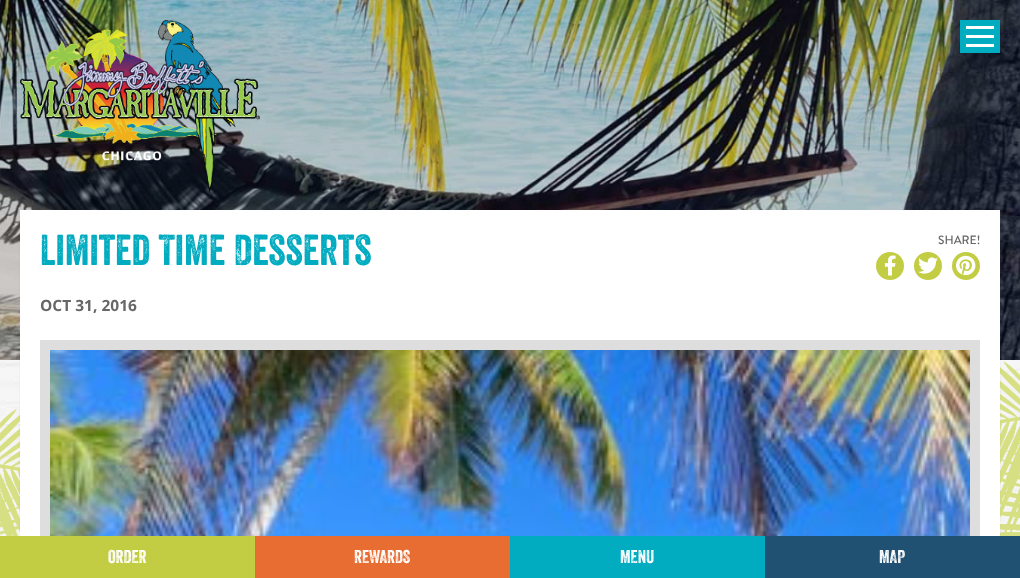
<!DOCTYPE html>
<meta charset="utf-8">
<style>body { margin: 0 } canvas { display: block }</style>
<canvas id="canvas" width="1020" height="578"></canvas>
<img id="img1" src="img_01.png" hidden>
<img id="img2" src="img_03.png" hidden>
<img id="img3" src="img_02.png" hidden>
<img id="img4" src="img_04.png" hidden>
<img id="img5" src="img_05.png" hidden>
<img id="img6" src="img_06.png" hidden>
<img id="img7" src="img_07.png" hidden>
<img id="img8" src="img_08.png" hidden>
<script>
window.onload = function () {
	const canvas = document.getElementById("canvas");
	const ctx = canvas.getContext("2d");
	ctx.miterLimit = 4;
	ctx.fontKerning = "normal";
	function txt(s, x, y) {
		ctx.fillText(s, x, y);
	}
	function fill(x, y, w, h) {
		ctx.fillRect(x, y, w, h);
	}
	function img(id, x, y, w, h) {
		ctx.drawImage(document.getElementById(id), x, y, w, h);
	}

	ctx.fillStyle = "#FFFFFF";
	fill(0, 0, 1020, 578);
	img("img1", 0, 360, 1020, 176);
	img("img2", 0, 0, 1020, 360);
	img("img3", 20, 20, 240, 173);
	ctx.fillStyle = "#01ABC0";
	fill(960, 20, 40, 33);
	ctx.fillStyle = "#FFFFFF";
	fill(966, 26, 28, 3);
	fill(966, 35, 28, 3);
	fill(966, 44, 28, 3);
	img("img4", 0, 361, 1020, 175);
	ctx.fillStyle = "rgba(103, 103, 103, 0.1)";
	ctx.filter = "blur(1px)";
	ctx.beginPath();
	ctx.rect(20, 212, 980, 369);
	ctx.fill();
	ctx.filter = "none";
	ctx.fillStyle = "#FFFFFF";
	fill(20, 210, 980, 326);
	ctx.fillStyle = "#C2CD43";
	ctx.beginPath();
	ctx.arc(890, 266, 14, 0, Math.PI * 2);
	ctx.fill();
	img("img5", 884, 255, 12, 21);
	ctx.beginPath();
	ctx.arc(928, 266, 14, 0, Math.PI * 2);
	ctx.fill();
	img("img6", 918, 257, 20, 17);
	ctx.beginPath();
	ctx.arc(966, 266, 14, 0, Math.PI * 2);
	ctx.fill();
	img("img7", 956, 255, 20, 21);
	ctx.strokeStyle = "#DEDEDE";
	ctx.lineWidth = 10;
	ctx.strokeRect(45, 345, 930, 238);
	img("img8", 50, 350, 920, 186);
	fill(0, 536, 255, 42);
	ctx.fillStyle = "#E86D32";
	fill(255, 536, 255, 42);
	ctx.fillStyle = "#01ABC0";
	fill(510, 536, 255, 42);
	ctx.fillStyle = "#205172";
	fill(765, 536, 255, 42);
	ctx.font = "42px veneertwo";
	ctx.fillStyle = "#01ABC0";
	txt("Limited Time Desserts", 40, 265);
	ctx.font = "bold 15.5px Open Sans";
	ctx.fillStyle = "#676767";
	txt("OCT 31, 2016", 40, 311);
	ctx.font = "500 12px Brandon Grotesque";
	txt("SHARE!", 938, 244);
	ctx.font = "18px veneertwo";
	ctx.fillStyle = "#FFFFFF";
	txt("ORDER", 108, 563);
	txt("REWARDS", 354, 563);
	txt("MENU", 620, 563);
	txt("MAP", 879, 563);
};
</script>
